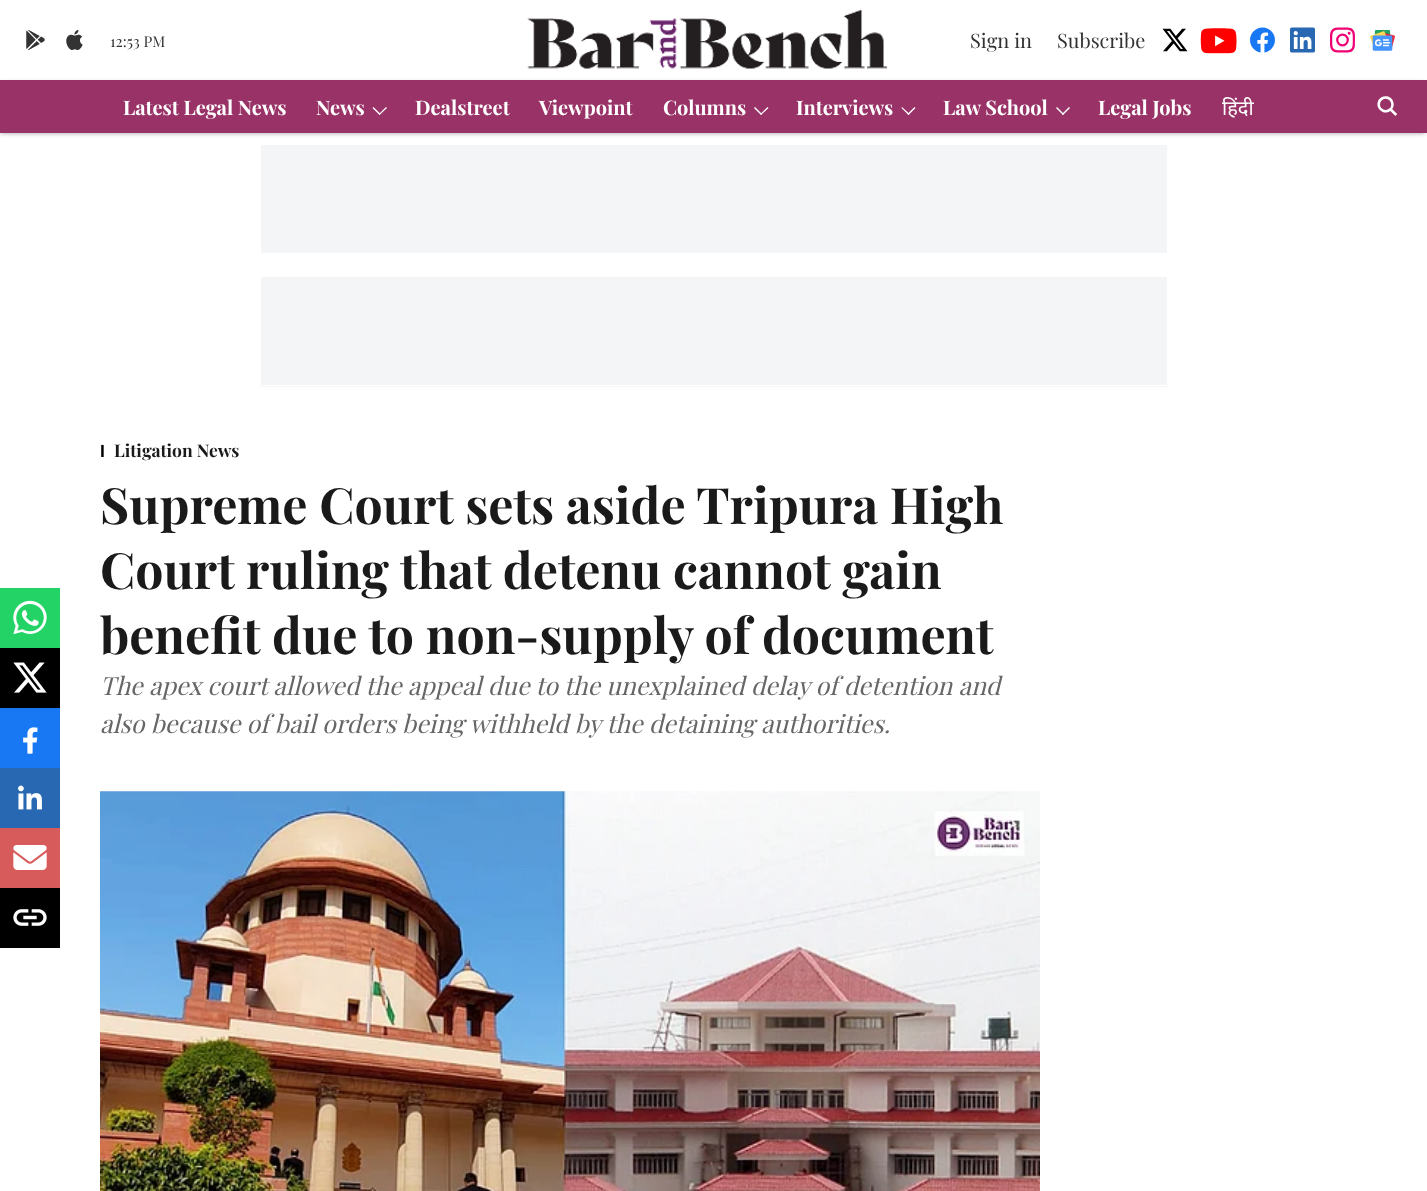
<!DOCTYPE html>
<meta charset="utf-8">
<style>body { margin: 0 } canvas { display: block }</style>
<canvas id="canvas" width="1427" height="1191"></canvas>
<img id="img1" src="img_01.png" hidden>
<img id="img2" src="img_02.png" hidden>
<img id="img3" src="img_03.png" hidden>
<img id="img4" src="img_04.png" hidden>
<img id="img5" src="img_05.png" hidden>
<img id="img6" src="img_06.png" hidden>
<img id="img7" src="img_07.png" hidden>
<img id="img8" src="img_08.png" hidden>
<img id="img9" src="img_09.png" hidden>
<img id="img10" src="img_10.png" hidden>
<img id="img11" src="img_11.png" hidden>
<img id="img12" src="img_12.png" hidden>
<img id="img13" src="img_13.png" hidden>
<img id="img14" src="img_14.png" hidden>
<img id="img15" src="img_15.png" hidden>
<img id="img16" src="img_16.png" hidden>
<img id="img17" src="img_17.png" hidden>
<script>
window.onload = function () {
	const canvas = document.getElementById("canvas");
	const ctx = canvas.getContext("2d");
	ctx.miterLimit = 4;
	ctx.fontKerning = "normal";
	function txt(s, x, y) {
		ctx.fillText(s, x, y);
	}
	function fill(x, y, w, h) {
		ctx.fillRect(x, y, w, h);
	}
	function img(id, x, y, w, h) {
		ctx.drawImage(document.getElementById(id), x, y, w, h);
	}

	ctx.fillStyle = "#FFFFFF";
	fill(0, 0, 1427, 1191);
	img("img1", 26, 30, 19, 20);
	img("img2", 66, 30, 17, 20);
	img("img3", 527, 9, 361, 60);
	img("img4", 1162, 28, 26, 24);
	img("img5", 1200, 28, 37, 26);
	img("img6", 1250, 27, 25, 26);
	img("img7", 1290, 27, 25, 26);
	img("img8", 1329, 27, 26, 26);
	img("img9", 1370, 30, 25, 21);
	ctx.fillStyle = "rgba(0, 0, 0, 0.39)";
	ctx.filter = "blur(2.5px)";
	ctx.beginPath();
	ctx.rect(0, 83, 1425, 50);
	ctx.fill();
	ctx.filter = "none";
	ctx.fillStyle = "#993266";
	fill(0, 80, 1427, 53);
	ctx.fillStyle = "#FFFFFF";
	ctx.beginPath();
	ctx.moveTo(386, 107);
	ctx.lineTo(387, 108);
	ctx.lineTo(379.5, 115);
	ctx.lineTo(379, 114);
	ctx.closePath();
	ctx.fill();
	ctx.beginPath();
	ctx.moveTo(373.5, 107);
	ctx.lineTo(380.5, 114);
	ctx.lineTo(379.5, 115);
	ctx.lineTo(372.5, 108);
	ctx.closePath();
	ctx.fill();
	ctx.beginPath();
	ctx.moveTo(767.5, 107);
	ctx.lineTo(768.5, 108);
	ctx.lineTo(761, 115);
	ctx.lineTo(760.5, 114);
	ctx.closePath();
	ctx.fill();
	ctx.beginPath();
	ctx.moveTo(755, 107);
	ctx.lineTo(762, 114);
	ctx.lineTo(761, 115);
	ctx.lineTo(754, 108);
	ctx.closePath();
	ctx.fill();
	ctx.beginPath();
	ctx.moveTo(914.5, 107);
	ctx.lineTo(915.5, 108);
	ctx.lineTo(908.5, 115);
	ctx.lineTo(907.5, 114);
	ctx.closePath();
	ctx.fill();
	ctx.beginPath();
	ctx.moveTo(902, 107);
	ctx.lineTo(909.5, 114);
	ctx.lineTo(908.5, 115);
	ctx.lineTo(901.5, 108);
	ctx.closePath();
	ctx.fill();
	ctx.beginPath();
	ctx.moveTo(1069, 107);
	ctx.lineTo(1070, 108);
	ctx.lineTo(1063, 115);
	ctx.lineTo(1062, 114);
	ctx.closePath();
	ctx.fill();
	ctx.beginPath();
	ctx.moveTo(1057, 107);
	ctx.lineTo(1064, 114);
	ctx.lineTo(1063, 115);
	ctx.lineTo(1056, 108);
	ctx.closePath();
	ctx.fill();
	img("img10", 1377, 96, 20, 20);
	ctx.fillStyle = "#F4F5F7";
	fill(261, 145, 906, 108);
	fill(260, 277, 908, 110);
	ctx.strokeStyle = "#FFFFFF";
	ctx.strokeRect(260.5, 276.5, 907, 109);
	ctx.fillStyle = "#24D366";
	fill(0, 588, 60, 60);
	img("img11", 13, 600, 34, 35);
	ctx.fillStyle = "#000000";
	fill(0, 648, 60, 60);
	img("img12", 13, 662, 34, 31);
	ctx.fillStyle = "#1877F2";
	fill(0, 708, 60, 60);
	img("img13", 23, 727, 15, 27);
	ctx.fillStyle = "#2867B2";
	fill(0, 768, 60, 60);
	img("img14", 18, 785, 24, 25);
	ctx.fillStyle = "#D85B5B";
	fill(0, 828, 60, 60);
	img("img15", 13, 845, 34, 25);
	ctx.fillStyle = "#000000";
	fill(0, 888, 60, 60);
	img("img16", 13, 909, 34, 17);
	img("img17", 100, 791, 940, 400);
	ctx.font = "15px Playfair Display";
	ctx.fillStyle = "#333333";
	txt("12:53 PM", 110, 47);
	ctx.font = "20px Playfair Display";
	txt("Sign in", 970, 48);
	txt("Subscribe", 1057, 48);
	ctx.font = "bold 20px Playfair Display";
	ctx.fillStyle = "#FFFFFF";
	txt("Latest Legal News", 123, 115);
	txt("News", 316, 115);
	txt("Dealstreet", 415, 115);
	txt("Viewpoint", 539, 115);
	txt("Columns", 663, 115);
	txt("Interviews", 796, 115);
	txt("Law School", 943, 115);
	txt("Legal Jobs", 1098, 115);
	ctx.font = "20px Noto Sans";
	txt("हिंदी", 1222, 115);
	ctx.font = "bold 17.5px Liberation Sans";
	ctx.fillStyle = "#000000";
	txt("I", 100, 457);
	ctx.font = "bold 17.5px Playfair Display";
	ctx.fillStyle = "#1A1A1A";
	txt("Litigation News", 114, 457);
	ctx.font = "bold 50px Playfair Display";
	txt("Supreme Court sets aside Tripura High", 100, 524);
	txt("Court ruling that detenu cannot gain", 100, 589);
	txt("benefit due to non-supply of document", 100, 654);
	ctx.font = "italic 25px Playfair Display";
	ctx.fillStyle = "#666666";
	txt("The apex court allowed the appeal due to the unexplained delay of detention and", 100, 695);
	txt("also because of bail orders being withheld by the detaining authorities.", 100, 733);
};
</script>
